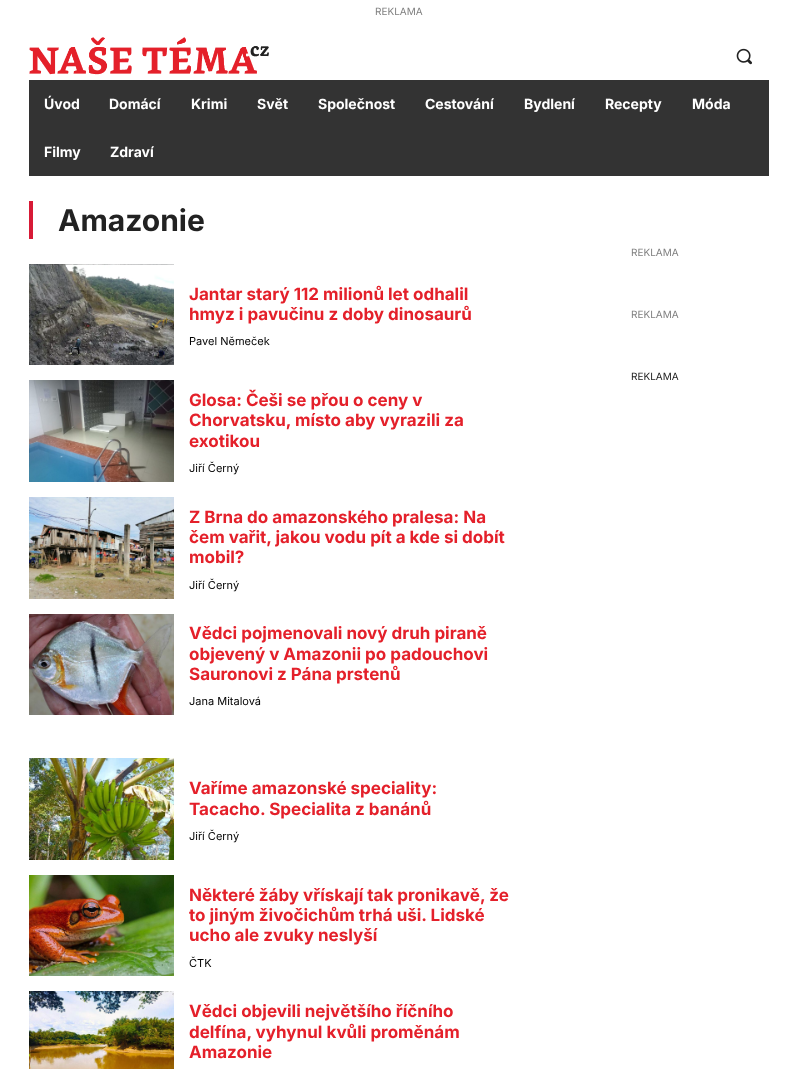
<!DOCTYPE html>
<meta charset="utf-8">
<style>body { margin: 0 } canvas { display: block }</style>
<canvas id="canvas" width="797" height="1069"></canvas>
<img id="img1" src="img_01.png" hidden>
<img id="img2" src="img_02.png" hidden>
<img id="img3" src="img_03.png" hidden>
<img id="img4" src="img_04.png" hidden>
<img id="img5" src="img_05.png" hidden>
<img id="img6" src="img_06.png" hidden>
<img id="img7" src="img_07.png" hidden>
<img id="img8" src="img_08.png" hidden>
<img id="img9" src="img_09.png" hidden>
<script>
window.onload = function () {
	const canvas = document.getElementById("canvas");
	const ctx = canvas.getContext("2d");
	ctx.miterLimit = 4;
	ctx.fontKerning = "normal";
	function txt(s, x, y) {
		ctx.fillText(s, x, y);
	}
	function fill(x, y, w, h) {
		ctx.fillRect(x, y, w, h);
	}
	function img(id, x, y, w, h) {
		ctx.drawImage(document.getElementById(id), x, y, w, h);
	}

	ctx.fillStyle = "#FFFFFF";
	fill(0, 0, 797, 1069);
	img("img1", 29, 37, 240, 38);
	img("img2", 736, 48, 16, 17);
	ctx.fillStyle = "#333333";
	fill(29, 80, 740, 96);
	ctx.fillStyle = "#D71A36";
	fill(29, 201, 4, 38);
	img("img3", 29, 264, 145, 101);
	img("img4", 29, 380, 145, 102);
	img("img5", 29, 497, 145, 102);
	img("img6", 29, 614, 145, 101);
	img("img7", 29, 758, 145, 102);
	img("img8", 29, 875, 145, 101);
	img("img9", 29, 991, 145, 78);
	ctx.font = "10px Inter";
	ctx.fillStyle = "#808080";
	txt("REKLAMA", 375, 15);
	ctx.font = "bold 14px Inter";
	ctx.fillStyle = "#FFFFFF";
	txt("Úvod", 44, 109);
	txt("Domácí", 109, 109);
	txt("Krimi", 191, 109);
	txt("Svět", 257, 109);
	txt("Společnost", 318, 109);
	txt("Cestování", 425, 109);
	txt("Bydlení", 524, 109);
	txt("Recepty", 605, 109);
	txt("Móda", 692, 109);
	txt("Filmy", 44, 157);
	txt("Zdraví", 110, 157);
	ctx.font = "bold 30px Inter";
	ctx.fillStyle = "#222222";
	txt("Amazonie", 58, 231);
	ctx.font = "bold 17px Inter";
	ctx.fillStyle = "#E4202A";
	txt("Jantar starý 112 milionů let odhalil", 189, 300);
	txt("hmyz i pavučinu z doby dinosaurů", 189, 320);
	ctx.font = "11px Inter";
	ctx.fillStyle = "#000000";
	txt("Pavel Němeček", 189, 345);
	ctx.font = "bold 17px Inter";
	ctx.fillStyle = "#E4202A";
	txt("Glosa: Češi se přou o ceny v", 189, 406);
	txt("Chorvatsku, místo aby vyrazili za", 189, 426);
	txt("exotikou", 189, 447);
	ctx.font = "11px Inter";
	ctx.fillStyle = "#000000";
	txt("Jiří Černý", 189, 472);
	ctx.font = "bold 17px Inter";
	ctx.fillStyle = "#E4202A";
	txt("Z Brna do amazonského pralesa: Na", 189, 523);
	txt("čem vařit, jakou vodu pít a kde si dobít", 189, 543);
	txt("mobil?", 189, 563);
	ctx.font = "11px Inter";
	ctx.fillStyle = "#000000";
	txt("Jiří Černý", 189, 589);
	ctx.font = "bold 17px Inter";
	ctx.fillStyle = "#E4202A";
	txt("Vědci pojmenovali nový druh piraně", 189, 639);
	txt("objevený v Amazonii po padouchovi", 189, 660);
	txt("Sauronovi z Pána prstenů", 189, 680);
	ctx.font = "11px Inter";
	ctx.fillStyle = "#000000";
	txt("Jana Mitalová", 189, 705);
	ctx.font = "bold 17px Inter";
	ctx.fillStyle = "#E4202A";
	txt("Vaříme amazonské speciality:", 189, 794);
	txt("Tacacho. Specialita z banánů", 189, 815);
	ctx.font = "11px Inter";
	ctx.fillStyle = "#000000";
	txt("Jiří Černý", 189, 840);
	ctx.font = "bold 17px Inter";
	ctx.fillStyle = "#E4202A";
	txt("Některé žáby vřískají tak pronikavě, že", 189, 901);
	txt("to jiným živočichům trhá uši. Lidské", 189, 921);
	txt("ucho ale zvuky neslyší", 189, 941);
	ctx.font = "11px Inter";
	ctx.fillStyle = "#000000";
	txt("ČTK", 189, 967);
	ctx.font = "bold 17px Inter";
	ctx.fillStyle = "#E4202A";
	txt("Vědci objevili největšího říčního", 189, 1017);
	txt("delfína, vyhynul kvůli proměnám", 189, 1038);
	txt("Amazonie", 189, 1058);
	ctx.font = "10px Inter";
	ctx.fillStyle = "#808080";
	txt("REKLAMA", 631, 256);
	txt("REKLAMA", 631, 318);
	ctx.fillStyle = "#222222";
	txt("REKLAMA", 631, 380);
};
</script>
